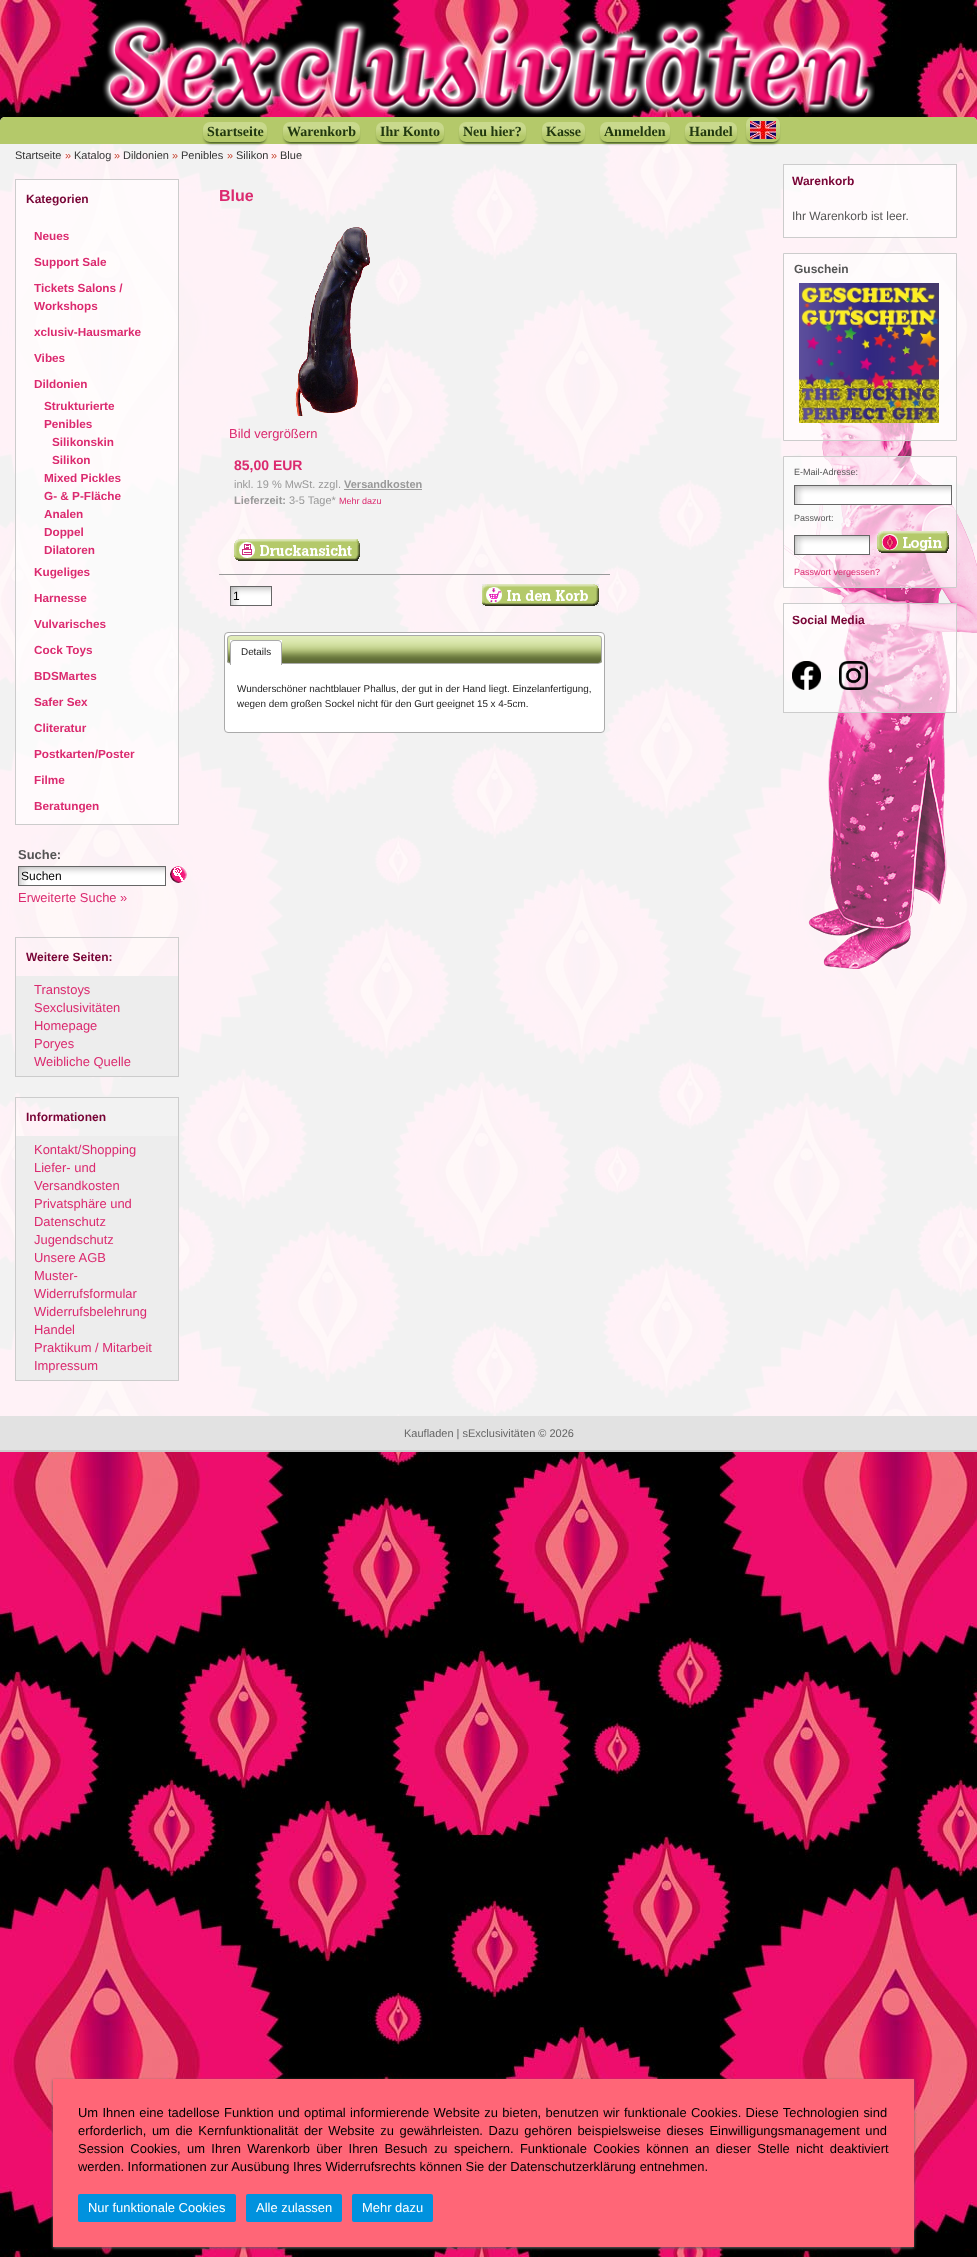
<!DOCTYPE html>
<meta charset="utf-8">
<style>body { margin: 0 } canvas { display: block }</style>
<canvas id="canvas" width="977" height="2257"></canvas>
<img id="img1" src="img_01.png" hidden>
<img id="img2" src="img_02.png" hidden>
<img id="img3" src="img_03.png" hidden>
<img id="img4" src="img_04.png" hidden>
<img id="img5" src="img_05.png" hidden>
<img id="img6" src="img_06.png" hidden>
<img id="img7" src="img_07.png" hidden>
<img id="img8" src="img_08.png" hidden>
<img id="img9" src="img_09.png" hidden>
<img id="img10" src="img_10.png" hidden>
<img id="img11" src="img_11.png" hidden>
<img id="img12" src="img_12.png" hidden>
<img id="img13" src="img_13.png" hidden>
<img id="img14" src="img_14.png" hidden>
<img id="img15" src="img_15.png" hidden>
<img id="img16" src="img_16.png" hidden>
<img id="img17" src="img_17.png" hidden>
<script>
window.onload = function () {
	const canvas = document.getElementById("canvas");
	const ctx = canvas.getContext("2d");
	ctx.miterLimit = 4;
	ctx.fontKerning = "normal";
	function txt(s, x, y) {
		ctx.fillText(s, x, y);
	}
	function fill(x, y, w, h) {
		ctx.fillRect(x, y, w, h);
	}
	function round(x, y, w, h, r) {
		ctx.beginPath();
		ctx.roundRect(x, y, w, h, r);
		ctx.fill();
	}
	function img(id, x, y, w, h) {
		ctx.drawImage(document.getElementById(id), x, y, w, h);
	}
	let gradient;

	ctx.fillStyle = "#FFFFFF";
	fill(0, 0, 977, 2257);
	img("img1", 0, 0, 977, 2257);
	img("img2", 102, 19, 773, 96);
	ctx.fillStyle = "rgba(255, 255, 255, 0.95)";
	ctx.beginPath();
	ctx.roundRect(0, 117, 977, 1335, [5, 5, 0, 0]);
	ctx.fill();
	ctx.fillStyle = "#B4C96A";
	ctx.beginPath();
	ctx.roundRect(0, 117, 977, 27, [5, 5, 0, 0]);
	ctx.fill();
	ctx.fillStyle = "#21380F";
	ctx.filter = "blur(1.5px)";
	ctx.beginPath();
	ctx.roundRect(205, 127, 60, 16, 5);
	ctx.fill();
	ctx.filter = "none";
	gradient = ctx.createLinearGradient(203, 122, 203, 142);
	gradient.addColorStop(0.32, "#C9D98D");
	gradient.addColorStop(0.73, "#B4C96A");
	ctx.fillStyle = gradient;
	round(203, 122, 64, 20, 7);
	ctx.fillStyle = "#21380F";
	ctx.filter = "blur(1.5px)";
	ctx.beginPath();
	ctx.roundRect(285, 127, 73, 16, 5);
	ctx.fill();
	ctx.filter = "none";
	gradient = ctx.createLinearGradient(283, 122, 283, 142);
	gradient.addColorStop(0.32, "#C9D98D");
	gradient.addColorStop(0.73, "#B4C96A");
	ctx.fillStyle = gradient;
	round(283, 122, 77, 20, 7);
	ctx.fillStyle = "#21380F";
	ctx.filter = "blur(1.5px)";
	ctx.beginPath();
	ctx.roundRect(378, 127, 64, 16, 5);
	ctx.fill();
	ctx.filter = "none";
	gradient = ctx.createLinearGradient(376, 122, 376, 142);
	gradient.addColorStop(0.32, "#C9D98D");
	gradient.addColorStop(0.73, "#B4C96A");
	ctx.fillStyle = gradient;
	round(376, 122, 68, 20, 7);
	ctx.fillStyle = "#21380F";
	ctx.filter = "blur(1.5px)";
	ctx.beginPath();
	ctx.roundRect(461, 127, 63, 16, 5);
	ctx.fill();
	ctx.filter = "none";
	gradient = ctx.createLinearGradient(459, 122, 459, 142);
	gradient.addColorStop(0.32, "#C9D98D");
	gradient.addColorStop(0.73, "#B4C96A");
	ctx.fillStyle = gradient;
	round(459, 122, 67, 20, 7);
	ctx.fillStyle = "#21380F";
	ctx.filter = "blur(1.5px)";
	ctx.beginPath();
	ctx.roundRect(544, 127, 39, 16, 5);
	ctx.fill();
	ctx.filter = "none";
	gradient = ctx.createLinearGradient(542, 122, 542, 142);
	gradient.addColorStop(0.32, "#C9D98D");
	gradient.addColorStop(0.73, "#B4C96A");
	ctx.fillStyle = gradient;
	round(542, 122, 43, 20, 7);
	ctx.fillStyle = "#21380F";
	ctx.filter = "blur(1.5px)";
	ctx.beginPath();
	ctx.roundRect(602, 127, 66, 16, 5);
	ctx.fill();
	ctx.filter = "none";
	gradient = ctx.createLinearGradient(600, 122, 600, 142);
	gradient.addColorStop(0.32, "#C9D98D");
	gradient.addColorStop(0.73, "#B4C96A");
	ctx.fillStyle = gradient;
	round(600, 122, 70, 20, 7);
	ctx.fillStyle = "#21380F";
	ctx.filter = "blur(1.5px)";
	ctx.beginPath();
	ctx.roundRect(687, 127, 48, 16, 5);
	ctx.fill();
	ctx.filter = "none";
	gradient = ctx.createLinearGradient(685, 122, 685, 142);
	gradient.addColorStop(0.32, "#C9D98D");
	gradient.addColorStop(0.73, "#B4C96A");
	ctx.fillStyle = gradient;
	round(685, 122, 52, 20, 7);
	ctx.fillStyle = "#21380F";
	ctx.filter = "blur(1.5px)";
	ctx.beginPath();
	ctx.roundRect(748, 122, 30, 21, 5);
	ctx.fill();
	ctx.filter = "none";
	gradient = ctx.createLinearGradient(746, 117, 746, 142);
	gradient.addColorStop(0.32, "#C9D98D");
	gradient.addColorStop(0.73, "#B4C96A");
	ctx.fillStyle = gradient;
	round(746, 117, 34, 25, 7);
	img("img3", 750, 121, 26, 18);
	img("img4", 784, 423, 193, 546);
	ctx.fillStyle = "rgba(255, 255, 255, 0.6)";
	fill(784, 165, 172, 30);
	ctx.fillStyle = "#CCCCCC";
	fill(783, 164, 174, 1);
	fill(956, 164, 1, 74);
	fill(783, 164, 1, 31);
	ctx.fillStyle = "rgba(255, 255, 255, 0.6)";
	fill(784, 195, 172, 42);
	ctx.fillStyle = "#CCCCCC";
	fill(783, 237, 174, 1);
	fill(783, 195, 1, 43);
	ctx.fillStyle = "rgba(255, 255, 255, 0.6)";
	ctx.beginPath();
	ctx.rect(783.5, 253.5, 173, 187);
	ctx.fill();
	ctx.strokeStyle = "#CCCCCC";
	ctx.stroke();
	img("img5", 799, 283, 140, 140);
	ctx.beginPath();
	ctx.rect(783.5, 456.5, 173, 131);
	ctx.fill();
	ctx.stroke();
	img("img6", 795, 486, 156, 18);
	ctx.strokeStyle = "#666666";
	ctx.strokeRect(794.5, 485.5, 157, 19);
	img("img7", 795, 536, 74, 18);
	ctx.strokeRect(794.5, 535.5, 75, 19);
	img("img8", 877, 531, 72, 22);
	fill(784, 604, 172, 30);
	ctx.fillStyle = "#CCCCCC";
	fill(783, 603, 174, 1);
	fill(956, 603, 1, 110);
	fill(783, 603, 1, 31);
	ctx.fillStyle = "rgba(255, 255, 255, 0.6)";
	fill(784, 634, 172, 78);
	ctx.fillStyle = "#CCCCCC";
	fill(783, 712, 174, 1);
	fill(783, 634, 1, 79);
	img("img9", 792, 661, 29, 29);
	img("img10", 839, 661, 29, 29);
	ctx.fillStyle = "#E2E2E2";
	fill(0, 1416, 977, 34);
	ctx.fillStyle = "#CCCCCC";
	fill(0, 1450, 977, 2);
	ctx.fillStyle = "rgba(255, 255, 255, 0.6)";
	fill(16, 180, 162, 38);
	ctx.fillStyle = "#CCCCCC";
	fill(15, 179, 164, 1);
	fill(178, 179, 1, 646);
	fill(15, 179, 1, 39);
	ctx.fillStyle = "rgba(255, 255, 255, 0.6)";
	fill(16, 218, 162, 606);
	ctx.fillStyle = "#CCCCCC";
	fill(15, 824, 164, 1);
	fill(15, 218, 1, 607);
	img("img11", 19, 867, 146, 18);
	ctx.strokeRect(18.5, 866.5, 147, 19);
	img("img12", 170, 866, 17, 17);
	fill(15, 937, 164, 1);
	fill(178, 937, 1, 140);
	fill(15, 937, 1, 39);
	ctx.fillStyle = "#EDEDED";
	fill(16, 976, 162, 100);
	ctx.fillStyle = "#CCCCCC";
	fill(15, 1076, 164, 1);
	fill(15, 976, 1, 101);
	fill(15, 1097, 164, 1);
	fill(178, 1097, 1, 284);
	fill(15, 1097, 1, 39);
	ctx.fillStyle = "#EDEDED";
	fill(16, 1136, 162, 244);
	ctx.fillStyle = "#CCCCCC";
	fill(15, 1380, 164, 1);
	fill(15, 1136, 1, 245);
	img("img13", 295, 227, 75, 189);
	ctx.fillStyle = "#999999";
	fill(344, 489, 78, 1);
	img("img14", 234, 539, 126, 22);
	fill(219, 574, 391, 1);
	img("img15", 231, 587, 40, 18);
	ctx.strokeRect(230.5, 586.5, 41, 19);
	img("img16", 482, 584, 117, 22);
	ctx.fillStyle = "#FFFFFF";
	ctx.beginPath();
	ctx.roundRect(224.5, 632.5, 380, 100, 3.5);
	ctx.fill();
	ctx.strokeStyle = "#AAAAAA";
	ctx.stroke();
	img("img17", 227, 636, 375, 27);
	ctx.beginPath();
	ctx.roundRect(227.5, 635.5, 374, 28, 3.5);
	ctx.stroke();
	fill(230, 643, 52, 21);
	ctx.fillStyle = "#FEFEFE";
	fill(230, 640, 52, 3);
	ctx.fillStyle = "#AAAAAA";
	ctx.beginPath();
	ctx.moveTo(234, 640);
	ctx.lineTo(278, 640);
	ctx.bezierCurveTo(280, 640, 282, 642, 282, 644);
	ctx.lineTo(282, 665);
	ctx.lineTo(230, 665);
	ctx.lineTo(230, 644);
	ctx.bezierCurveTo(230, 642, 232, 640, 234, 640);
	ctx.closePath();
	ctx.moveTo(234, 641);
	ctx.lineTo(278, 641);
	ctx.bezierCurveTo(280, 641, 281, 642, 281, 644);
	ctx.lineTo(281, 665);
	ctx.lineTo(231, 665);
	ctx.lineTo(231, 644);
	ctx.bezierCurveTo(231, 642, 232, 641, 234, 641);
	ctx.closePath();
	ctx.fill("evenodd");
	ctx.fillStyle = "#666666";
	ctx.filter = "blur(1.5px)";
	ctx.beginPath();
	ctx.rect(53, 2080, 861, 168);
	ctx.fill();
	ctx.filter = "none";
	ctx.fillStyle = "#FF6677";
	fill(53, 2079, 861, 168);
	ctx.fillStyle = "#0092DE";
	round(78, 2194, 158, 28, 2);
	round(246, 2194, 96, 28, 2);
	round(352, 2194, 81, 28, 2);
	ctx.font = "bold 14px Liberation Serif";
	ctx.fillStyle = "#21380F";
	txt("Startseite", 207, 136);
	txt("Warenkorb", 287, 136);
	txt("Ihr Konto", 380, 136);
	txt("Neu hier?", 463, 136);
	txt("Kasse", 546, 136);
	txt("Anmelden", 604, 136);
	txt("Handel", 689, 136);
	ctx.font = "11px Liberation Sans";
	ctx.fillStyle = "#333333";
	txt("Startseite", 15, 159);
	ctx.fillStyle = "#C64934";
	txt("»", 65, 159);
	ctx.fillStyle = "#333333";
	txt("Katalog", 74, 159);
	ctx.fillStyle = "#C64934";
	txt("»", 114, 159);
	ctx.fillStyle = "#333333";
	txt("Dildonien", 123, 159);
	ctx.fillStyle = "#C64934";
	txt("»", 172, 159);
	ctx.fillStyle = "#333333";
	txt("Penibles", 181, 159);
	ctx.fillStyle = "#C64934";
	txt("»", 227, 159);
	ctx.fillStyle = "#333333";
	txt("Silikon", 236, 159);
	ctx.fillStyle = "#C64934";
	txt("»", 271, 159);
	ctx.fillStyle = "#333333";
	txt("Blue", 280, 159);
	ctx.font = "bold 12px Liberation Sans";
	ctx.fillStyle = "#780436";
	txt("Warenkorb", 792, 185);
	ctx.font = "12px Liberation Sans";
	ctx.fillStyle = "#555555";
	txt("Ihr Warenkorb ist leer.", 792, 220);
	ctx.font = "bold 12px Liberation Sans";
	txt("Guschein", 794, 273);
	ctx.font = "9px Liberation Sans";
	txt("E-Mail-Adresse:", 794, 475);
	txt("Passwort:", 794, 521);
	ctx.fillStyle = "#DB2A6F";
	txt("Passwort vergessen?", 794, 575);
	ctx.font = "bold 12px Liberation Sans";
	ctx.fillStyle = "#780436";
	txt("Social Media", 792, 624);
	ctx.font = "11px Liberation Sans";
	ctx.fillStyle = "#666666";
	txt("Kaufladen | sExclusivitäten © 2026", 404, 1437);
	ctx.font = "bold 12px Liberation Sans";
	ctx.fillStyle = "#780436";
	txt("Kategorien", 26, 203);
	ctx.font = "bold 11.75px Liberation Sans";
	ctx.fillStyle = "#DB2A6F";
	txt("Neues", 34, 240);
	txt("Support Sale", 34, 266);
	txt("Tickets Salons /", 34, 292);
	txt("Workshops", 34, 310);
	txt("xclusiv-Hausmarke", 34, 336);
	txt("Vibes", 34, 362);
	txt("Dildonien", 34, 388);
	txt("Strukturierte", 44, 410);
	txt("Penibles", 44, 428);
	txt("Silikonskin", 52, 446);
	txt("Silikon", 52, 464);
	txt("Mixed Pickles", 44, 482);
	txt("G- & P-Fläche", 44, 500);
	txt("Analen", 44, 518);
	txt("Doppel", 44, 536);
	txt("Dilatoren", 44, 554);
	txt("Kugeliges", 34, 576);
	txt("Harnesse", 34, 602);
	txt("Vulvarisches", 34, 628);
	txt("Cock Toys", 34, 654);
	txt("BDSMartes", 34, 680);
	txt("Safer Sex", 34, 706);
	txt("Cliteratur", 34, 732);
	txt("Postkarten/Poster", 34, 758);
	txt("Filme", 34, 784);
	txt("Beratungen", 34, 810);
	ctx.font = "bold 12.95px Liberation Sans";
	ctx.fillStyle = "#555555";
	txt("Suche:", 18, 859);
	ctx.font = "12px Liberation Sans";
	ctx.fillStyle = "#000000";
	txt("Suchen", 21, 880);
	ctx.font = "12.95px Liberation Sans";
	ctx.fillStyle = "#DB2A6F";
	txt("Erweiterte Suche »", 18, 902);
	ctx.font = "bold 12px Liberation Sans";
	ctx.fillStyle = "#780436";
	txt("Weitere Seiten:", 26, 961);
	ctx.font = "12.95px Liberation Sans";
	ctx.fillStyle = "#DB2A6F";
	txt("Transtoys", 34, 994);
	txt("Sexclusivitäten", 34, 1012);
	txt("Homepage", 34, 1030);
	txt("Poryes", 34, 1048);
	txt("Weibliche Quelle", 34, 1066);
	ctx.font = "bold 12px Liberation Sans";
	ctx.fillStyle = "#780436";
	txt("Informationen", 26, 1121);
	ctx.font = "12.95px Liberation Sans";
	ctx.fillStyle = "#DB2A6F";
	txt("Kontakt/Shopping", 34, 1154);
	txt("Liefer- und", 34, 1172);
	txt("Versandkosten", 34, 1190);
	txt("Privatsphäre und", 34, 1208);
	txt("Datenschutz", 34, 1226);
	txt("Jugendschutz", 34, 1244);
	txt("Unsere AGB", 34, 1262);
	txt("Muster-", 34, 1280);
	txt("Widerrufsformular", 34, 1298);
	txt("Widerrufsbelehrung", 34, 1316);
	txt("Handel", 34, 1334);
	txt("Praktikum / Mitarbeit", 34, 1352);
	txt("Impressum", 34, 1370);
	ctx.font = "bold 16px Liberation Sans";
	txt("Blue", 219, 201);
	ctx.font = "12.95px Liberation Sans";
	txt("Bild vergrößern", 229, 438);
	ctx.font = "bold 14px Liberation Sans";
	txt("85,00 EUR", 234, 470);
	ctx.font = "11px Liberation Sans";
	ctx.fillStyle = "#999999";
	txt("inkl. 19 % MwSt. zzgl.", 234, 488);
	ctx.font = "bold 11px Liberation Sans";
	txt("Versandkosten", 344, 488);
	txt("Lieferzeit:", 234, 504);
	ctx.font = "11px Liberation Sans";
	txt("3-5 Tage*", 289, 504);
	ctx.font = "9px Liberation Sans";
	ctx.fillStyle = "#DB2A6F";
	txt("Mehr dazu", 339, 504);
	ctx.font = "12px Liberation Sans";
	ctx.fillStyle = "#000000";
	txt("1", 233, 600);
	ctx.font = "9.9px Liberation Sans";
	ctx.fillStyle = "#222222";
	txt("Details", 241, 655);
	txt("Wunderschöner nachtblauer Phallus, der gut in der Hand liegt. Einzelanfertigung,", 237, 692);
	txt("wegen dem großen Sockel nicht für den Gurt geeignet 15 x 4-5cm.", 237, 707);
	ctx.wordSpacing = "0.75px";
	ctx.font = "12.95px Liberation Sans";
	ctx.fillStyle = "#000000";
	txt("Um Ihnen eine tadellose Funktion und optimal informierende Website zu bieten, benutzen wir funktionale Cookies. Diese Technologien sind", 78, 2117);
	ctx.wordSpacing = "2px";
	txt("erforderlich, um die Kernfunktionalität der Website zu gewährleisten. Dazu gehören beispielsweise dieses Einwilligungsmanagement und", 78, 2135);
	ctx.wordSpacing = "2.75px";
	txt("Session Cookies, um Ihren Warenkorb über Ihren Besuch zu speichern. Funktionale Cookies können an dieser Stelle nicht deaktiviert", 78, 2153);
	ctx.wordSpacing = "0px";
	txt("werden. Informationen zur Ausübung Ihres Widerrufsrechts können Sie der Datenschutzerklärung entnehmen.", 78, 2171);
	ctx.fillStyle = "#FFFFFF";
	txt("Nur funktionale Cookies", 88, 2212);
	txt("Alle zulassen", 256, 2212);
	txt("Mehr dazu", 362, 2212);
};
</script>
